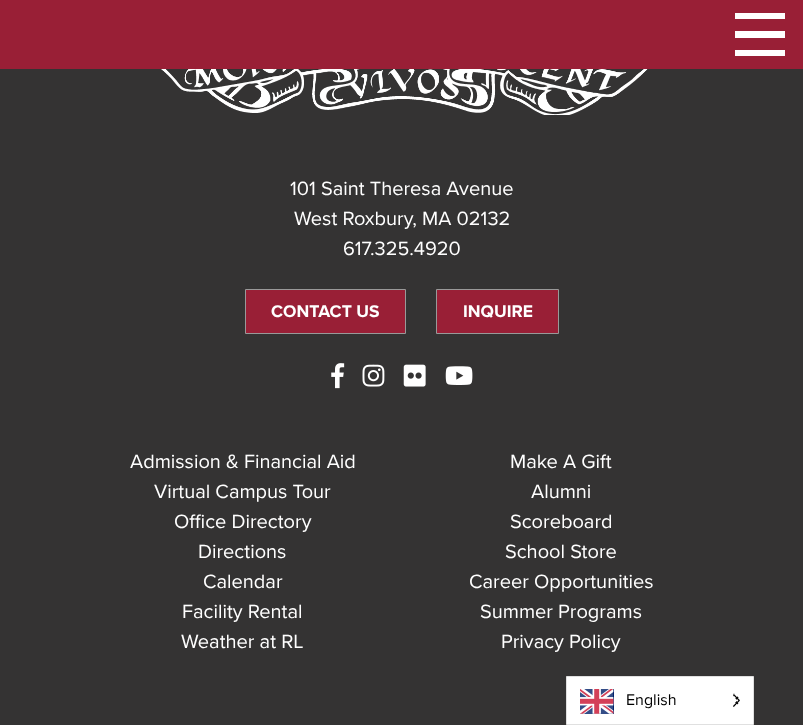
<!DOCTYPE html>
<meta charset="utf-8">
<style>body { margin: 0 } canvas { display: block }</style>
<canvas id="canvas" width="803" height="725"></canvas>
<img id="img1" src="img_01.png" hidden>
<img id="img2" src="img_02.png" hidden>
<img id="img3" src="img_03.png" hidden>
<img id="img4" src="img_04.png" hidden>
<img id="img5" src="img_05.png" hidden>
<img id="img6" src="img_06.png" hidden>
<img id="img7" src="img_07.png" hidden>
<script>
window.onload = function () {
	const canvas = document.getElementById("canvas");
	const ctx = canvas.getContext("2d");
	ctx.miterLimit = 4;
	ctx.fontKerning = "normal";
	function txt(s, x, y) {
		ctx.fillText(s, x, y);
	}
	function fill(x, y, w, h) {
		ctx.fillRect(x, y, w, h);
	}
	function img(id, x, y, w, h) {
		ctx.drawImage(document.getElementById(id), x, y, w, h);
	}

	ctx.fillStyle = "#343333";
	fill(0, 0, 803, 725);
	ctx.fillStyle = "#991F36";
	fill(0, 0, 803, 69);
	ctx.fillStyle = "#FFFFFF";
	fill(735, 13, 50, 6);
	fill(735, 31, 50, 7);
	fill(735, 50, 50, 6);
	img("img1", 161, 69, 487, 46);
	ctx.fillStyle = "#991F36";
	ctx.beginPath();
	ctx.rect(245.5, 289.5, 160, 44);
	ctx.fill();
	ctx.strokeStyle = "#999999";
	ctx.stroke();
	ctx.beginPath();
	ctx.rect(436.5, 289.5, 122, 44);
	ctx.fill();
	ctx.stroke();
	img("img2", 331, 363, 14, 26);
	img("img3", 362, 364, 23, 23);
	img("img4", 403, 364, 23, 23);
	img("img5", 445, 366, 28, 19);
	ctx.fillStyle = "#FFFFFF";
	ctx.beginPath();
	ctx.rect(566.5, 676.5, 187, 48);
	ctx.fill();
	ctx.strokeStyle = "#E0E0E0";
	ctx.stroke();
	img("img6", 580, 689, 34, 25);
	img("img7", 733, 693, 7, 14);
	ctx.font = "20px Proxima Nova";
	txt("101 Saint Theresa Avenue", 290, 195);
	txt("West Roxbury, MA 02132", 294, 225);
	txt("617.325.4920", 343, 255);
	ctx.font = "bold 17.5px Proxima Nova";
	txt("CONTACT US", 271, 317);
	txt("INQUIRE", 463, 317);
	ctx.font = "20px Proxima Nova";
	txt("Admission & Financial Aid", 130, 468);
	txt("Virtual Campus Tour", 154, 498);
	txt("Office Directory", 174, 528);
	txt("Directions", 198, 558);
	txt("Calendar", 203, 588);
	txt("Facility Rental", 182, 618);
	txt("Weather at RL", 181, 648);
	txt("Make A Gift", 510, 468);
	txt("Alumni", 531, 498);
	txt("Scoreboard", 510, 528);
	txt("School Store", 505, 558);
	txt("Career Opportunities", 469, 588);
	txt("Summer Programs", 480, 618);
	txt("Privacy Policy", 501, 648);
	ctx.font = "16px Proxima Nova";
	ctx.fillStyle = "#000000";
	txt("English", 626, 705);
};
</script>
